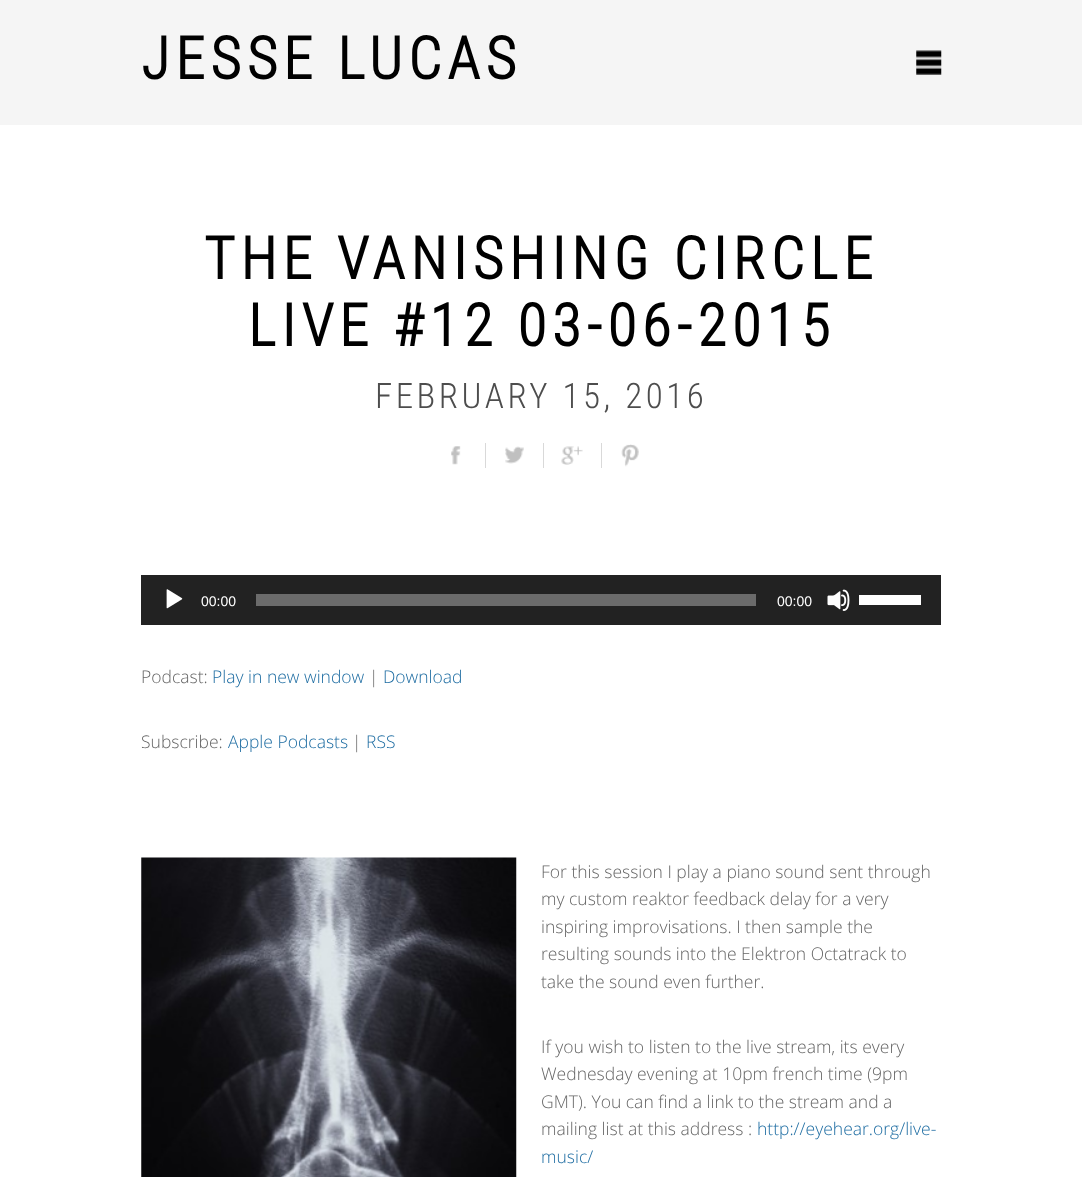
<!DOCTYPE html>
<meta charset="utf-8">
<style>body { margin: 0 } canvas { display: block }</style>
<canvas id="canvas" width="1082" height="1177"></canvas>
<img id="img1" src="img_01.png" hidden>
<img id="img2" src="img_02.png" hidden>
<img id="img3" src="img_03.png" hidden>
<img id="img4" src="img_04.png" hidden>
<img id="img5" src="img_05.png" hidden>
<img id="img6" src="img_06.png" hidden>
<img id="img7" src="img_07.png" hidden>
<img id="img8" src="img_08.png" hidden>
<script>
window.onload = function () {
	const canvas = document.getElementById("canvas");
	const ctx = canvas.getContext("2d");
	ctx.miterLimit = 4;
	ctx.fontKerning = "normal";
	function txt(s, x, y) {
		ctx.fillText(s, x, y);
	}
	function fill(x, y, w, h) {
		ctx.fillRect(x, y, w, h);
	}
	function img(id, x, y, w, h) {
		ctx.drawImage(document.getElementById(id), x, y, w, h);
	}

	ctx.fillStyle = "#FFFFFF";
	fill(0, 0, 1082, 1177);
	ctx.fillStyle = "#F5F5F5";
	fill(0, 0, 1082, 125);
	img("img1", 916, 50, 26, 25);
	img("img2", 451, 446, 10, 19);
	ctx.fillStyle = "#D9D9D9";
	fill(485, 443, 1, 25);
	img("img3", 505, 446, 19, 18);
	fill(543, 443, 1, 25);
	img("img4", 561, 446, 22, 19);
	fill(601, 443, 1, 25);
	img("img5", 621, 444, 18, 23);
	ctx.fillStyle = "#222222";
	fill(141, 575, 800, 50);
	img("img6", 166, 589, 17, 20);
	ctx.fillStyle = "#6B6B6B";
	fill(256, 594, 500, 12);
	img("img7", 827, 589, 23, 22);
	ctx.fillStyle = "#FFFFFF";
	fill(859, 595, 62, 10);
	img("img8", 141, 857, 376, 320);
	ctx.letterSpacing = "5.9px";
	ctx.font = "bold 58.75px Roboto Condensed";
	ctx.fillStyle = "#000000";
	txt("JESSE LUCAS", 141, 79);
	txt("THE VANISHING CIRCLE", 204, 279);
	txt("LIVE #12 03-06-2015", 248, 346);
	ctx.letterSpacing = "3.5px";
	ctx.font = "300 35px Roboto Condensed";
	ctx.fillStyle = "#4D4D4D";
	txt("FEBRUARY 15, 2016", 375, 408);
	ctx.letterSpacing = "0px";
	ctx.font = "14px Liberation Sans";
	ctx.fillStyle = "#FFFFFF";
	txt("00:00", 201, 606);
	txt("00:00", 777, 606);
	ctx.font = "300 17.5px Open Sans";
	ctx.fillStyle = "#666666";
	txt("Podcast:", 141, 683);
	ctx.fillStyle = "#206EA3";
	txt("Play in new window", 212, 683);
	ctx.fillStyle = "#666666";
	txt("|", 369, 683);
	ctx.fillStyle = "#206EA3";
	txt("Download", 383, 683);
	ctx.fillStyle = "#666666";
	txt("Subscribe:", 141, 748);
	ctx.fillStyle = "#206EA3";
	txt("Apple Podcasts", 228, 748);
	ctx.fillStyle = "#666666";
	txt("|", 352, 748);
	ctx.fillStyle = "#206EA3";
	txt("RSS", 366, 748);
	ctx.fillStyle = "#666666";
	txt("For this session I play a piano sound sent through", 541, 878);
	txt("my custom reaktor feedback delay for a very", 541, 905);
	txt("inspiring improvisations. I then sample the", 541, 933);
	txt("resulting sounds into the Elektron Octatrack to", 541, 960);
	txt("take the sound even further.", 541, 988);
	txt("If you wish to listen to the live stream, its every", 541, 1053);
	txt("Wednesday evening at 10pm french time (9pm", 541, 1080);
	txt("GMT). You can find a link to the stream and a", 541, 1108);
	txt("mailing list at this address :", 541, 1135);
	ctx.fillStyle = "#206EA3";
	txt("http://eyehear.org/live-", 757, 1135);
	txt("music/", 541, 1163);
};
</script>
